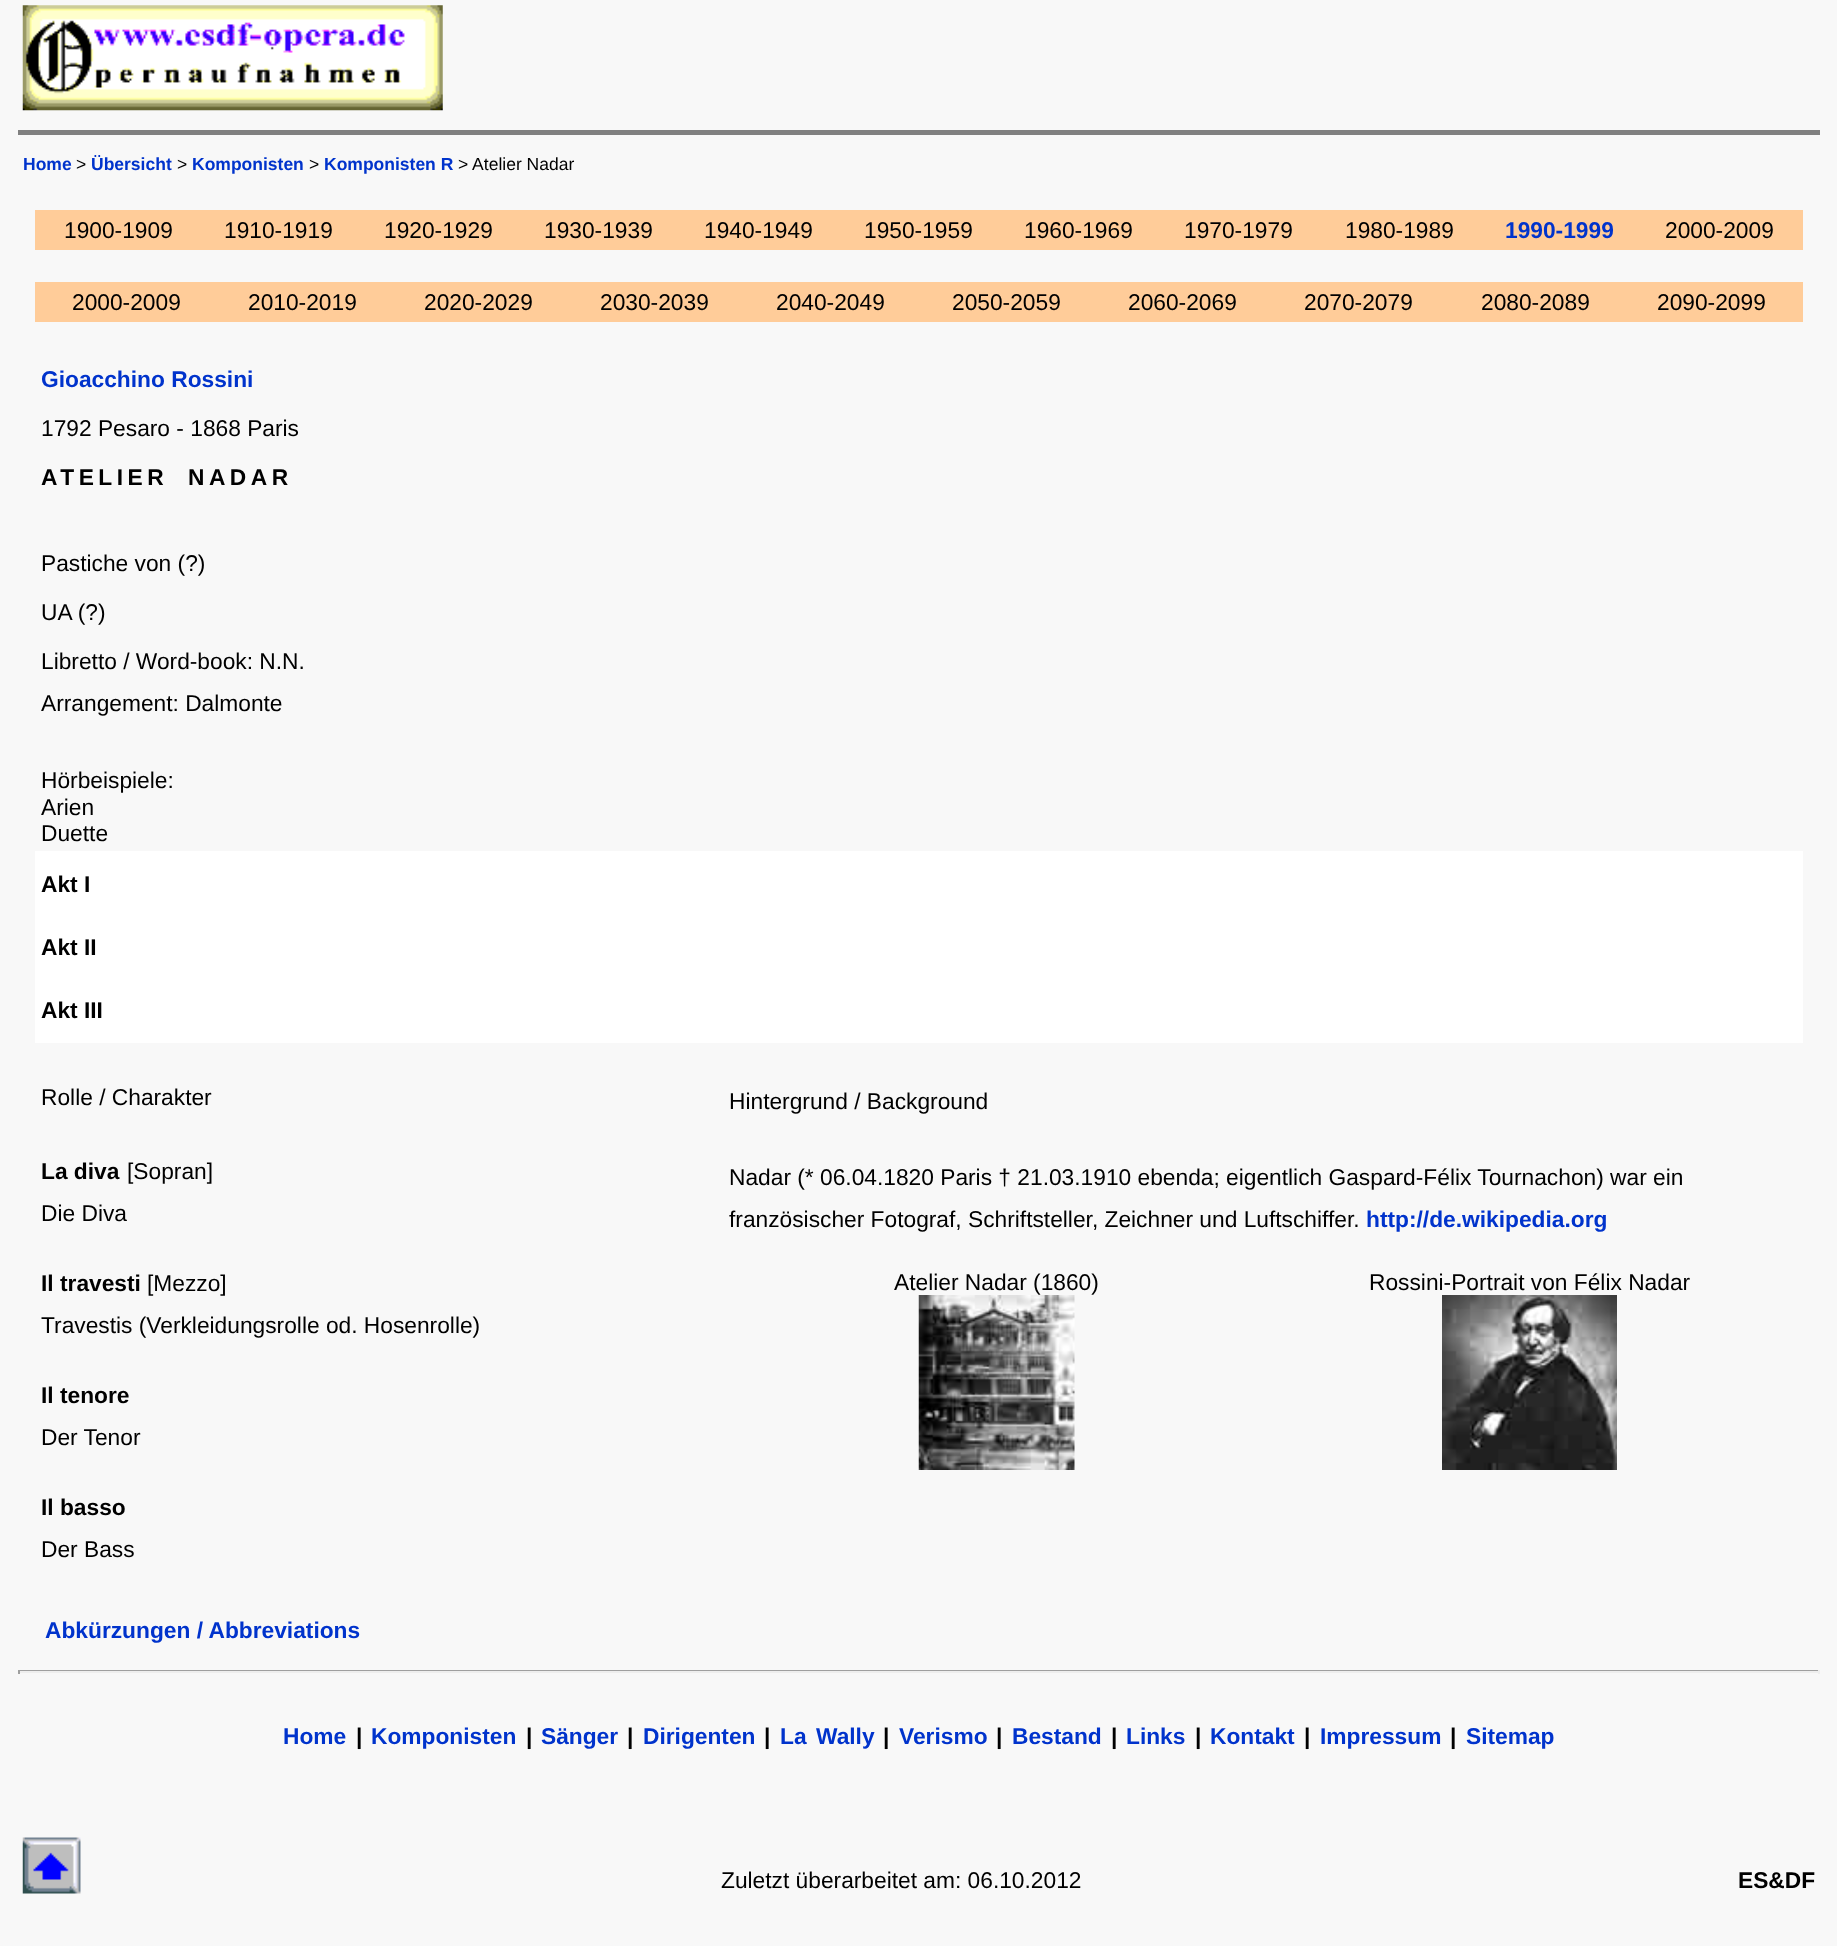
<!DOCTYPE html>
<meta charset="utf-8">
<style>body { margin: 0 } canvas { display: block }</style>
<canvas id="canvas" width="1837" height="1946"></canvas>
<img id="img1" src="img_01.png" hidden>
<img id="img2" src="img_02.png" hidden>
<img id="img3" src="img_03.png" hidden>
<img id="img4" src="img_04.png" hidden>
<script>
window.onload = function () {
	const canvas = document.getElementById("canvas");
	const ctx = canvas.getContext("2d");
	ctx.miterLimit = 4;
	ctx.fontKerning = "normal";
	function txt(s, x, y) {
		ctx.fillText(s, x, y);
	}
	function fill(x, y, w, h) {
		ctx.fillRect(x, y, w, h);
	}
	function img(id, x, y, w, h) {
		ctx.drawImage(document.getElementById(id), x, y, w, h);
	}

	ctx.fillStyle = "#F8F8F8";
	fill(0, 0, 1837, 1946);
	img("img1", 22, 5, 421, 106);
	ctx.fillStyle = "#808080";
	fill(18, 130, 1802, 5);
	ctx.fillStyle = "#FFCC99";
	fill(35, 210, 1768, 40);
	fill(35, 282, 1768, 40);
	ctx.fillStyle = "#FFFFFF";
	fill(35, 851, 1768, 192);
	img("img2", 918, 1295, 157, 175);
	img("img3", 1442, 1295, 175, 175);
	ctx.fillStyle = "#9F9F9F";
	fill(18, 1670, 1802, 1);
	ctx.fillStyle = "#EEEEEE";
	fill(1818, 1670, 2, 4);
	fill(18, 1671, 1802, 2);
	ctx.fillStyle = "#9F9F9F";
	fill(18, 1670, 2, 4);
	img("img4", 22, 1837, 59, 57);
	ctx.font = "bold 17.5px Liberation Sans";
	ctx.fillStyle = "#0033CC";
	txt("Home", 23, 170);
	ctx.font = "17.5px Liberation Sans";
	ctx.fillStyle = "#000000";
	txt(">", 76, 170);
	ctx.font = "bold 17.5px Liberation Sans";
	ctx.fillStyle = "#0033CC";
	txt("Übersicht", 91, 170);
	ctx.font = "17.5px Liberation Sans";
	ctx.fillStyle = "#000000";
	txt(">", 177, 170);
	ctx.font = "bold 17.5px Liberation Sans";
	ctx.fillStyle = "#0033CC";
	txt("Komponisten", 192, 170);
	ctx.font = "17.5px Liberation Sans";
	ctx.fillStyle = "#000000";
	txt(">", 309, 170);
	ctx.font = "bold 17.5px Liberation Sans";
	ctx.fillStyle = "#0033CC";
	txt("Komponisten R", 324, 170);
	ctx.font = "17.5px Liberation Sans";
	ctx.fillStyle = "#000000";
	txt("> Atelier Nadar", 458, 170);
	ctx.font = "22.75px Liberation Sans";
	txt("1900-1909", 64, 238);
	txt("1910-1919", 224, 238);
	txt("1920-1929", 384, 238);
	txt("1930-1939", 544, 238);
	txt("1940-1949", 704, 238);
	txt("1950-1959", 864, 238);
	txt("1960-1969", 1024, 238);
	txt("1970-1979", 1184, 238);
	txt("1980-1989", 1345, 238);
	ctx.font = "bold 22.75px Liberation Sans";
	ctx.fillStyle = "#0033CC";
	txt("1990-1999", 1505, 238);
	ctx.font = "22.75px Liberation Sans";
	ctx.fillStyle = "#000000";
	txt("2000-2009", 1665, 238);
	txt("2000-2009", 72, 310);
	txt("2010-2019", 248, 310);
	txt("2020-2029", 424, 310);
	txt("2030-2039", 600, 310);
	txt("2040-2049", 776, 310);
	txt("2050-2059", 952, 310);
	txt("2060-2069", 1128, 310);
	txt("2070-2079", 1304, 310);
	txt("2080-2089", 1481, 310);
	txt("2090-2099", 1657, 310);
	ctx.font = "bold 22.75px Liberation Sans";
	ctx.fillStyle = "#0033CC";
	txt("Gioacchino Rossini", 41, 387);
	ctx.font = "22.75px Liberation Sans";
	ctx.fillStyle = "#000000";
	txt("1792 Pesaro - 1868 Paris", 41, 436);
	ctx.letterSpacing = "4.5px";
	ctx.font = "bold 22.75px Liberation Sans";
	txt("ATELIER", 41, 485);
	txt("NADAR", 188, 485);
	ctx.letterSpacing = "0px";
	ctx.font = "22.75px Liberation Sans";
	txt("Pastiche von (?)", 41, 571);
	txt("UA (?)", 41, 620);
	txt("Libretto / Word-book: N.N.", 41, 669);
	txt("Arrangement: Dalmonte", 41, 711);
	txt("Hörbeispiele:", 41, 788);
	txt("Arien", 41, 815);
	txt("Duette", 41, 841);
	ctx.font = "bold 22.75px Liberation Sans";
	txt("Akt I", 41, 892);
	txt("Akt II", 41, 955);
	txt("Akt III", 41, 1018);
	ctx.font = "22.75px Liberation Sans";
	txt("Rolle / Charakter", 41, 1105);
	ctx.font = "bold 22.75px Liberation Sans";
	txt("La diva", 41, 1179);
	ctx.font = "22.75px Liberation Sans";
	txt("[Sopran]", 127, 1179);
	txt("Die Diva", 41, 1221);
	ctx.font = "bold 22.75px Liberation Sans";
	txt("Il travesti", 41, 1291);
	ctx.font = "22.75px Liberation Sans";
	txt("[Mezzo]", 147, 1291);
	txt("Travestis (Verkleidungsrolle od. Hosenrolle)", 41, 1333);
	ctx.font = "bold 22.75px Liberation Sans";
	txt("Il tenore", 41, 1403);
	ctx.font = "22.75px Liberation Sans";
	txt("Der Tenor", 41, 1445);
	ctx.font = "bold 22.75px Liberation Sans";
	txt("Il basso", 41, 1515);
	ctx.font = "22.75px Liberation Sans";
	txt("Der Bass", 41, 1557);
	txt("Hintergrund / Background", 729, 1109);
	txt("Nadar (* 06.04.1820 Paris † 21.03.1910 ebenda; eigentlich Gaspard-Félix Tournachon) war ein", 729, 1185);
	txt("französischer Fotograf, Schriftsteller, Zeichner und Luftschiffer.", 729, 1227);
	ctx.font = "bold 22.75px Liberation Sans";
	ctx.fillStyle = "#0033CC";
	txt("http://de.wikipedia.org", 1366, 1227);
	ctx.font = "22.75px Liberation Sans";
	ctx.fillStyle = "#000000";
	txt("Atelier Nadar (1860)", 894, 1290);
	txt("Rossini-Portrait von Félix Nadar", 1369, 1290);
	ctx.font = "bold 22.75px Liberation Sans";
	ctx.fillStyle = "#0033CC";
	txt("Abkürzungen / Abbreviations", 45, 1638);
	txt("Home", 283, 1744);
	ctx.fillStyle = "#000000";
	txt("|", 356, 1744);
	ctx.fillStyle = "#0033CC";
	txt("Komponisten", 371, 1744);
	ctx.fillStyle = "#000000";
	txt("|", 526, 1744);
	ctx.fillStyle = "#0033CC";
	txt("Sänger", 541, 1744);
	ctx.fillStyle = "#000000";
	txt("|", 627, 1744);
	ctx.fillStyle = "#0033CC";
	txt("Dirigenten", 643, 1744);
	ctx.fillStyle = "#000000";
	txt("|", 764, 1744);
	ctx.fillStyle = "#0033CC";
	txt("La", 780, 1744);
	txt("Wally", 816, 1744);
	ctx.fillStyle = "#000000";
	txt("|", 883, 1744);
	ctx.fillStyle = "#0033CC";
	txt("Verismo", 899, 1744);
	ctx.fillStyle = "#000000";
	txt("|", 996, 1744);
	ctx.fillStyle = "#0033CC";
	txt("Bestand", 1012, 1744);
	ctx.fillStyle = "#000000";
	txt("|", 1111, 1744);
	ctx.fillStyle = "#0033CC";
	txt("Links", 1126, 1744);
	ctx.fillStyle = "#000000";
	txt("|", 1195, 1744);
	ctx.fillStyle = "#0033CC";
	txt("Kontakt", 1210, 1744);
	ctx.fillStyle = "#000000";
	txt("|", 1304, 1744);
	ctx.fillStyle = "#0033CC";
	txt("Impressum", 1320, 1744);
	ctx.fillStyle = "#000000";
	txt("|", 1450, 1744);
	ctx.fillStyle = "#0033CC";
	txt("Sitemap", 1466, 1744);
	ctx.font = "22.75px Liberation Sans";
	ctx.fillStyle = "#000000";
	txt("Zuletzt überarbeitet am: 06.10.2012", 721, 1888);
	ctx.font = "bold 22.75px Liberation Sans";
	txt("ES&DF", 1738, 1888);
};
</script>
